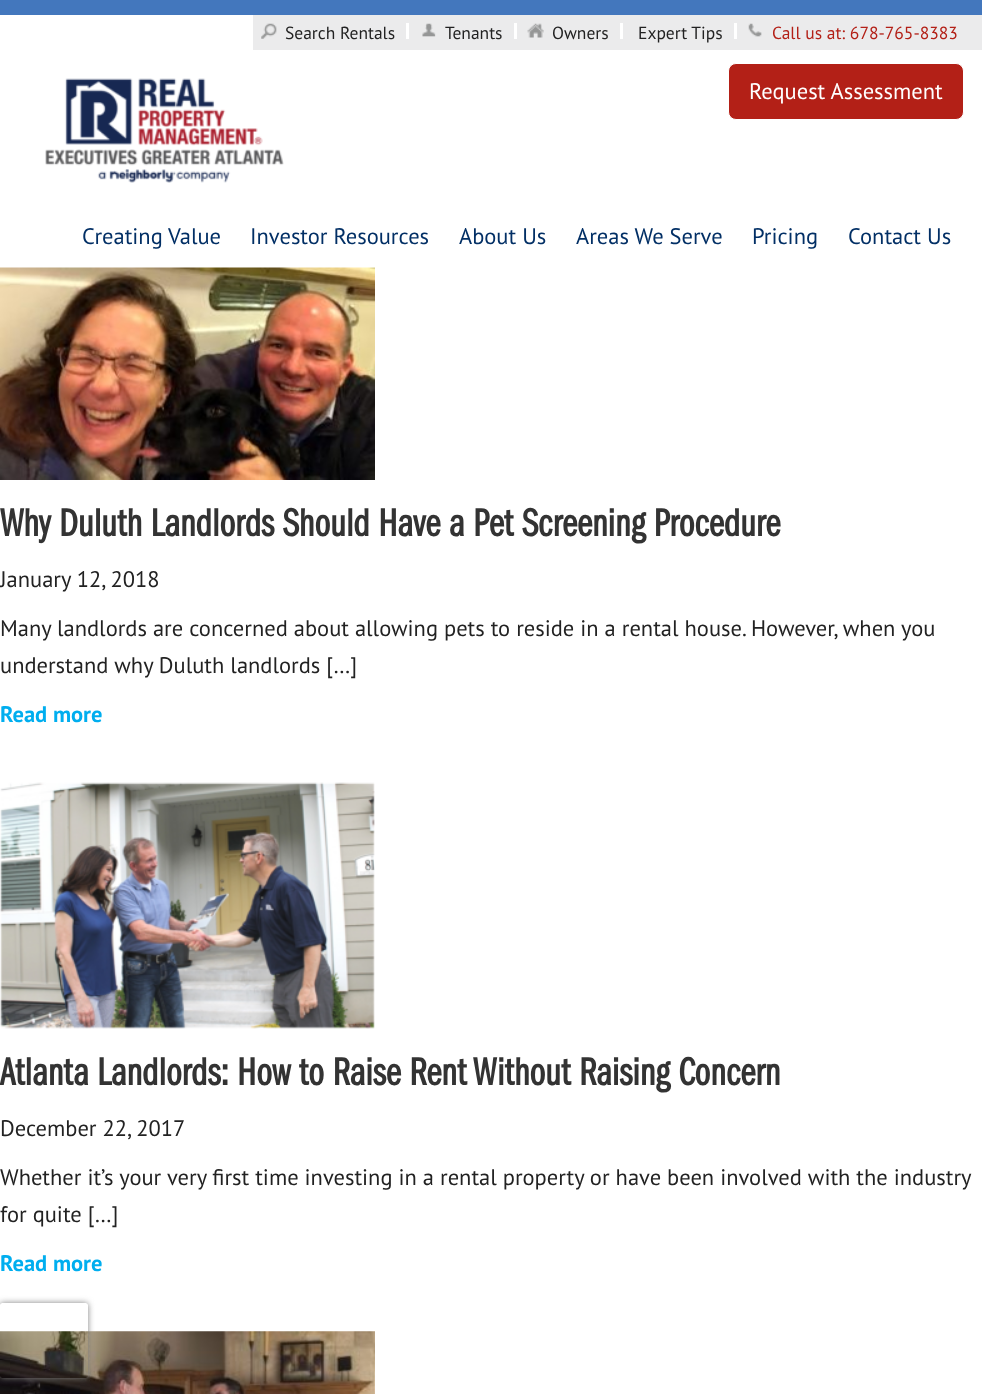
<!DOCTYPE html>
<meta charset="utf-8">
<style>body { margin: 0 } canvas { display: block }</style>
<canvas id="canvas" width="982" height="1394"></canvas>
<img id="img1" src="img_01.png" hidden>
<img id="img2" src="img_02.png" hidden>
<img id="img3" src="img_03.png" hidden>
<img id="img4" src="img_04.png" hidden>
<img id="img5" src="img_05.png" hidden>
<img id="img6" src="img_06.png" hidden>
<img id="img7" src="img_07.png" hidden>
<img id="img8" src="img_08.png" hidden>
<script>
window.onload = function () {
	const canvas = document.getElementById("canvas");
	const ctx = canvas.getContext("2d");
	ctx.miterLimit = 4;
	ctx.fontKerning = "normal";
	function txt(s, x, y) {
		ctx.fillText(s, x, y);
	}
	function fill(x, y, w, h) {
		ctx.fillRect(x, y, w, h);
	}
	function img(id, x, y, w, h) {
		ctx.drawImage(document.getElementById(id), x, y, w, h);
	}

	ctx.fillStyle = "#4377BD";
	fill(0, 0, 982, 1394);
	ctx.fillStyle = "#FFFFFF";
	fill(0, 15, 982, 1379);
	ctx.fillStyle = "#EBEBEC";
	fill(253, 15, 729, 35);
	img("img1", 261, 23, 16, 16);
	ctx.fillStyle = "#FFFFFF";
	fill(406, 23, 3, 16);
	img("img2", 422, 23, 14, 14);
	fill(514, 23, 3, 16);
	img("img3", 527, 23, 17, 15);
	fill(620, 23, 3, 16);
	fill(734, 23, 3, 16);
	img("img4", 748, 23, 14, 14);
	img("img5", 45, 78, 239, 105);
	ctx.fillStyle = "#B32017";
	ctx.beginPath();
	ctx.roundRect(728.5, 63.5, 235, 56, 7.5);
	ctx.fill();
	ctx.strokeStyle = "#FFFFFF";
	ctx.stroke();
	img("img6", 0, 267, 375, 213);
	img("img7", 0, 782, 375, 247);
	img("img8", 0, 1331, 375, 63);
	ctx.save();
	ctx.beginPath();
	ctx.moveTo(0, 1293);
	ctx.lineTo(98, 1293);
	ctx.lineTo(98, 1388);
	ctx.lineTo(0, 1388);
	ctx.closePath();
	ctx.moveTo(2.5, 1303);
	ctx.lineTo(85.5, 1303);
	ctx.bezierCurveTo(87, 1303, 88, 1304, 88, 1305.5);
	ctx.lineTo(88, 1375.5);
	ctx.bezierCurveTo(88, 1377, 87, 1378, 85.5, 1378);
	ctx.lineTo(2.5, 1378);
	ctx.bezierCurveTo(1, 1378, 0, 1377, 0, 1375.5);
	ctx.lineTo(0, 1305.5);
	ctx.bezierCurveTo(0, 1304, 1, 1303, 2.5, 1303);
	ctx.closePath();
	ctx.clip("evenodd");
	ctx.fillStyle = "#808080";
	ctx.filter = "blur(3px)";
	ctx.beginPath();
	ctx.roundRect(0, 1303, 88, 75, 2.5);
	ctx.fill();
	ctx.filter = "none";
	ctx.restore();
	ctx.font = "17.5px PT Sans";
	ctx.fillStyle = "#222222";
	txt("Search Rentals", 285, 39);
	txt("Tenants", 445, 39);
	txt("Owners", 552, 39);
	txt("Expert Tips", 638, 39);
	ctx.fillStyle = "#B32017";
	txt("Call us at: 678-765-8383", 772, 39);
	ctx.font = "22.5px PT Sans";
	ctx.fillStyle = "#FFFFFF";
	txt("Request Assessment", 749, 99);
	ctx.fillStyle = "#022F65";
	txt("Creating Value", 82, 244);
	txt("Investor Resources", 250, 244);
	txt("About Us", 459, 244);
	txt("Areas We Serve", 576, 244);
	txt("Pricing", 752, 244);
	txt("Contact Us", 848, 244);
	ctx.font = "bold 40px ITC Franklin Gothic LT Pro";
	ctx.fillStyle = "#333333";
	txt("Why Duluth Landlords Should Have a Pet Screening Procedure", 0, 536);
	ctx.font = "22.5px PT Sans";
	ctx.fillStyle = "#222222";
	txt("January 12, 2018", 0, 587);
	txt("Many landlords are concerned about allowing pets to reside in a rental house. However, when you", 0, 636);
	txt("understand why Duluth landlords […]", 0, 673);
	ctx.font = "bold 22.5px PT Sans";
	ctx.fillStyle = "#00AEEF";
	txt("Read more", 0, 722);
	ctx.font = "bold 40px ITC Franklin Gothic LT Pro";
	ctx.fillStyle = "#333333";
	txt("Atlanta Landlords: How to Raise Rent Without Raising Concern", 0, 1085);
	ctx.font = "22.5px PT Sans";
	ctx.fillStyle = "#222222";
	txt("December 22, 2017", 0, 1136);
	txt("Whether it’s your very first time investing in a rental property or have been involved with the industry", 0, 1185);
	txt("for quite […]", 0, 1222);
	ctx.font = "bold 22.5px PT Sans";
	ctx.fillStyle = "#00AEEF";
	txt("Read more", 0, 1271);
};
</script>
